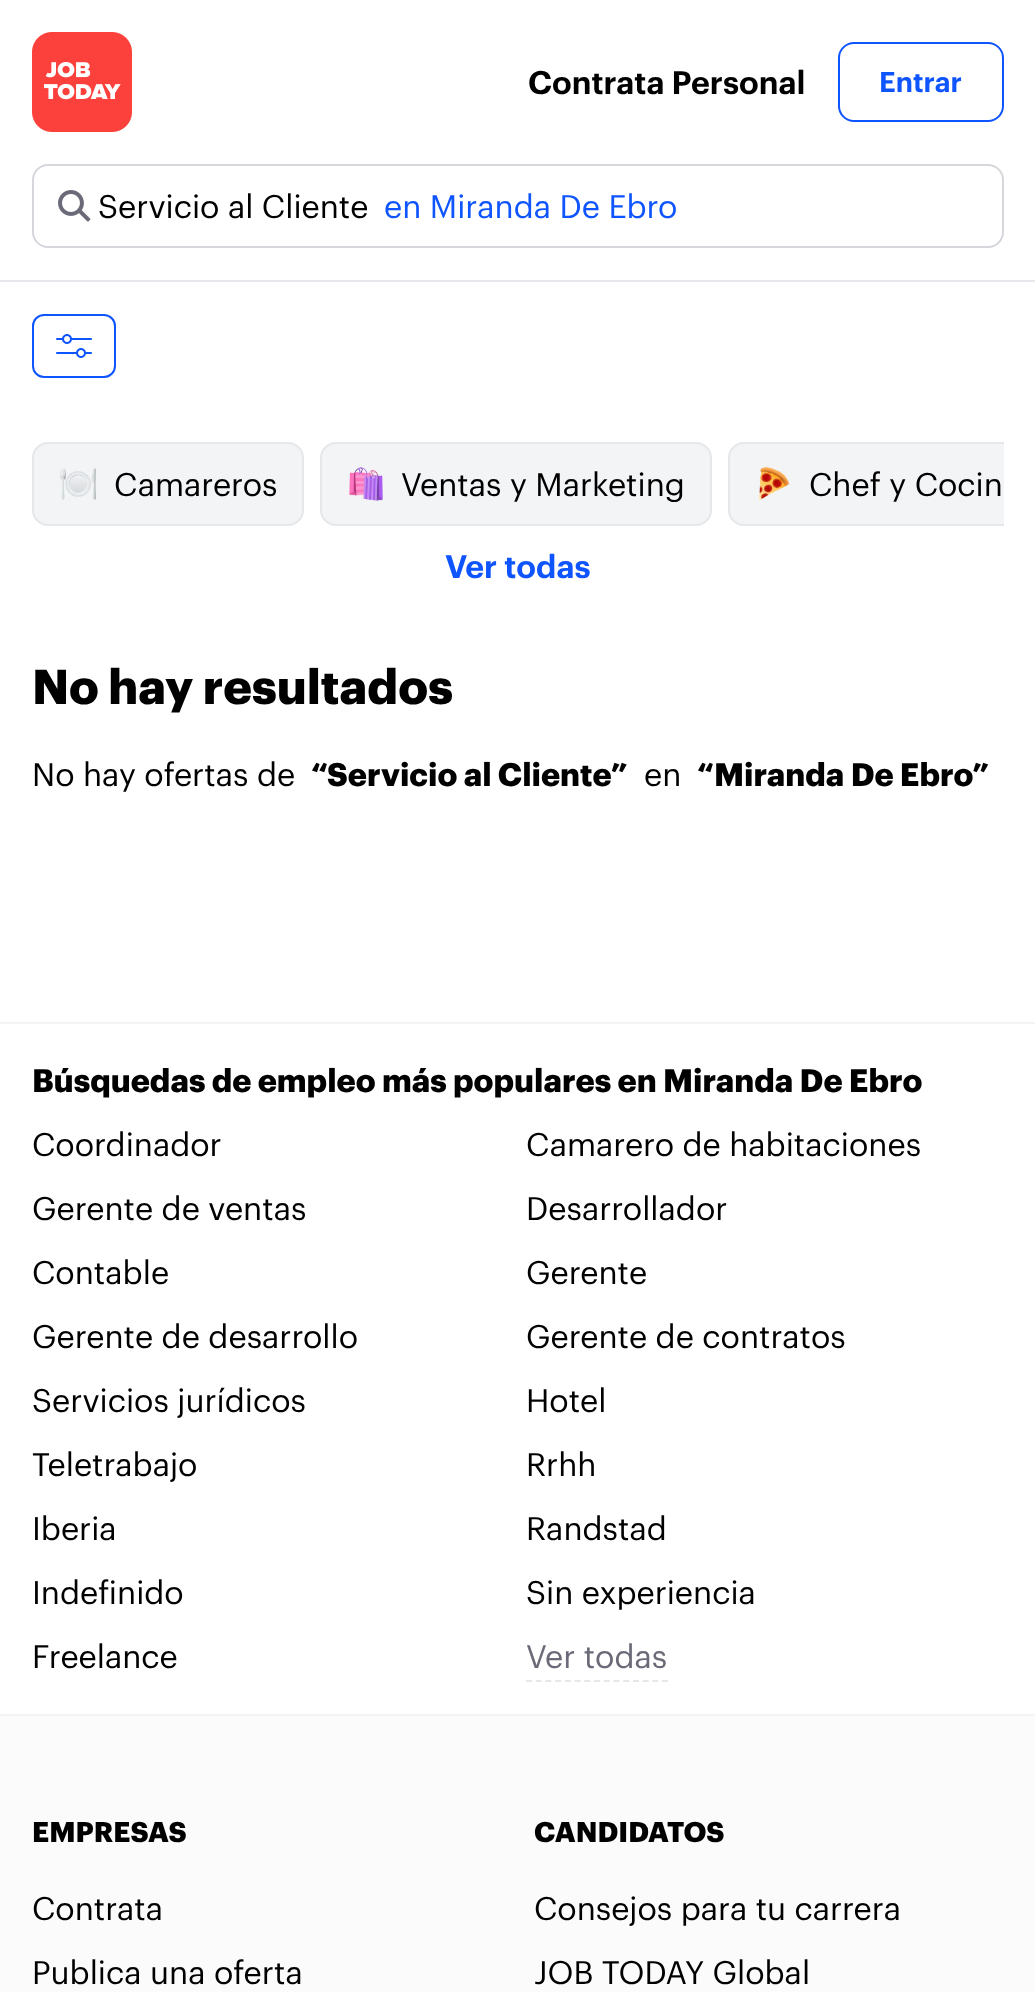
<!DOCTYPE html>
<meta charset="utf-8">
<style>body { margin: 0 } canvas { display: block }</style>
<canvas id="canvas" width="1035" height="1992"></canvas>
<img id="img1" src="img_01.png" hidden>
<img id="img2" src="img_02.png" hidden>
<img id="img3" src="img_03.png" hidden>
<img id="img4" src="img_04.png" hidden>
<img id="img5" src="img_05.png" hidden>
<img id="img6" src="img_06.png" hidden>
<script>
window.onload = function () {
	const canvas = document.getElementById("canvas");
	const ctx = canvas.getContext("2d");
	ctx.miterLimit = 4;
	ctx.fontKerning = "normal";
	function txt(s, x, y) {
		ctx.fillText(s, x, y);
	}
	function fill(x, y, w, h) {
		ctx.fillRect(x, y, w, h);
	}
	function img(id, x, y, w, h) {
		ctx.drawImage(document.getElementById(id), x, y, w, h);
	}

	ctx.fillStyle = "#FFFFFF";
	fill(0, 0, 1035, 1992);
	ctx.fillStyle = "#E5E7EB";
	fill(0, 280, 1035, 2);
	img("img1", 32, 32, 100, 100);
	ctx.beginPath();
	ctx.roundRect(839, 43, 164, 78, 15);
	ctx.strokeStyle = "#0E54FF";
	ctx.lineWidth = 2;
	ctx.stroke();
	ctx.beginPath();
	ctx.roundRect(33, 165, 970, 82, 15);
	ctx.strokeStyle = "#D6D6DC";
	ctx.stroke();
	img("img2", 58, 190, 33, 32);
	ctx.beginPath();
	ctx.roundRect(33, 315, 82, 62, 11);
	ctx.strokeStyle = "#0E54FF";
	ctx.stroke();
	img("img3", 56, 334, 36, 24);
	ctx.fillStyle = "#F3F4F6";
	ctx.beginPath();
	ctx.roundRect(33, 443, 270, 82, 15);
	ctx.fill();
	ctx.strokeStyle = "#E5E7EB";
	ctx.stroke();
	img("img4", 60, 468, 36, 32);
	ctx.beginPath();
	ctx.roundRect(321, 443, 390, 82, 15);
	ctx.fill();
	ctx.stroke();
	img("img5", 349, 467, 34, 34);
	ctx.beginPath();
	ctx.roundRect(728, 442, 276, 84, [16, 0, 0, 16]);
	ctx.fill();
	ctx.save();
	ctx.beginPath();
	ctx.rect(32, 442, 972, 84);
	ctx.clip();
	ctx.beginPath();
	ctx.roundRect(729, 443, 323, 82, 15);
	ctx.stroke();
	ctx.restore();
	img("img6", 759, 467, 30, 34);
	fill(0, 1022, 1035, 2);
	ctx.beginPath();
	ctx.moveTo(526, 1681);
	ctx.lineTo(668, 1681);
	ctx.setLineDash([6, 3.72]);
	ctx.stroke();
	ctx.fillStyle = "#FBFBFB";
	fill(0, 1716, 1035, 276);
	ctx.fillStyle = "#F3F4F6";
	fill(0, 1714, 1035, 2);
	ctx.font = "600 32px Graphik";
	ctx.fillStyle = "#000000";
	txt("Contrata Personal", 528, 94);
	ctx.font = "600 28px Graphik";
	ctx.fillStyle = "#0E54FF";
	txt("Entrar", 879, 92);
	ctx.font = "32px Graphik";
	ctx.fillStyle = "#000000";
	txt("Servicio al Cliente", 98, 218);
	ctx.fillStyle = "#0E54FF";
	txt("en Miranda De Ebro", 384, 218);
	ctx.fillStyle = "#000000";
	txt("Camareros", 114, 496);
	txt("Ventas y Marketing", 401, 496);
	txt("Chef y Cocin", 809, 496);
	ctx.font = "600 32px Graphik";
	ctx.fillStyle = "#0E54FF";
	txt("Ver todas", 445, 578);
	ctx.font = "bold 48px Graphik";
	ctx.fillStyle = "#000000";
	txt("No hay resultados", 32, 704);
	ctx.font = "32px Graphik";
	txt("No hay ofertas de", 32, 786);
	ctx.font = "bold 32px Graphik";
	txt("“Servicio al Cliente”", 311, 786);
	ctx.font = "32px Graphik";
	txt("en", 644, 786);
	ctx.font = "bold 32px Graphik";
	txt("“Miranda De Ebro”", 697, 786);
	txt("Búsquedas de empleo más populares en Miranda De Ebro", 32, 1092);
	ctx.font = "32px Graphik";
	txt("Coordinador", 32, 1156);
	txt("Camarero de habitaciones", 526, 1156);
	txt("Gerente de ventas", 32, 1220);
	txt("Desarrollador", 526, 1220);
	txt("Contable", 32, 1284);
	txt("Gerente", 526, 1284);
	txt("Gerente de desarrollo", 32, 1348);
	txt("Gerente de contratos", 526, 1348);
	txt("Servicios jurídicos", 32, 1412);
	txt("Hotel", 526, 1412);
	txt("Teletrabajo", 32, 1476);
	txt("Rrhh", 526, 1476);
	txt("Iberia", 32, 1540);
	txt("Randstad", 526, 1540);
	txt("Indefinido", 32, 1604);
	txt("Sin experiencia", 526, 1604);
	txt("Freelance", 32, 1668);
	ctx.fillStyle = "#6A6A78";
	txt("Ver todas", 526, 1668);
	ctx.font = "bold 28px Graphik";
	ctx.fillStyle = "#000000";
	txt("EMPRESAS", 32, 1842);
	ctx.font = "32px Graphik";
	txt("Contrata", 32, 1920);
	txt("Publica una oferta", 32, 1984);
	ctx.font = "bold 28px Graphik";
	txt("CANDIDATOS", 534, 1842);
	ctx.font = "32px Graphik";
	txt("Consejos para tu carrera", 534, 1920);
	txt("JOB TODAY Global", 534, 1984);
};
</script>
